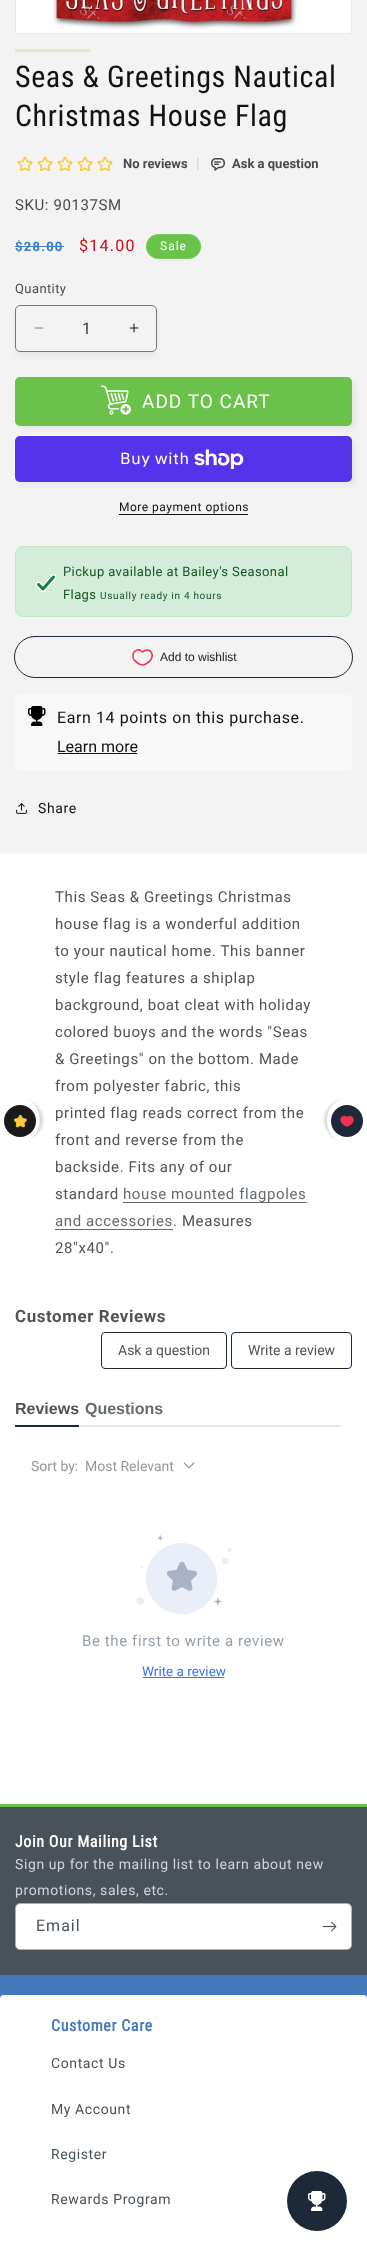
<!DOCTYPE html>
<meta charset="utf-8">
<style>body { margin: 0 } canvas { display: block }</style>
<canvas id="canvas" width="367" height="2241"></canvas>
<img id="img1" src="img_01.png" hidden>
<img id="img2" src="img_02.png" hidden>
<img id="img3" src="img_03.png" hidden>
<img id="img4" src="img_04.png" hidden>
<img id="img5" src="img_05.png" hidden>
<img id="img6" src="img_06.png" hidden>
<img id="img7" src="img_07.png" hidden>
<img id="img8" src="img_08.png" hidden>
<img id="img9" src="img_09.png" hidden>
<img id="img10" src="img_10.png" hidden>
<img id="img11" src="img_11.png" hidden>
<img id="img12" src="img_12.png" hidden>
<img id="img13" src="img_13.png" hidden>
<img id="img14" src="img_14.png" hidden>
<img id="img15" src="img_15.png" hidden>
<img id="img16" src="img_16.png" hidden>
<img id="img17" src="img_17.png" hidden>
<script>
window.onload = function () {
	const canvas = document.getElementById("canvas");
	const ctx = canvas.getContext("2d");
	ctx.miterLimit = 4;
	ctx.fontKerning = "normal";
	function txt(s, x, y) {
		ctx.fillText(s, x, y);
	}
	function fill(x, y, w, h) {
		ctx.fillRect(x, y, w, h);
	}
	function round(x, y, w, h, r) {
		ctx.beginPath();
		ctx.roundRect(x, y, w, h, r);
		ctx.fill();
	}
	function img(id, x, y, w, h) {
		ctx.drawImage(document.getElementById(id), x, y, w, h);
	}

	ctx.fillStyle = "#FFFFFF";
	fill(0, 0, 367, 2241);
	ctx.fillStyle = "#F3F3F3";
	fill(0, 0, 367, 854);
	ctx.strokeStyle = "#E8E8E8";
	ctx.strokeRect(15.5, -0.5, 336, 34);
	img("img1", 16, 0, 335, 33);
	ctx.fillStyle = "#E3E9C2";
	fill(15, 49, 75, 3);
	img("img2", 17, 156, 16, 16);
	img("img2", 37, 156, 16, 16);
	img("img2", 57, 156, 16, 16);
	img("img2", 77, 156, 16, 16);
	img("img2", 97, 156, 16, 16);
	img("img3", 211, 158, 14, 13);
	ctx.fillStyle = "#3A7CC7";
	fill(15, 246, 49, 1);
	ctx.fillStyle = "#6AC24A";
	round(146, 234, 55, 25, 12.5);
	ctx.beginPath();
	ctx.roundRect(146.5, 234.5, 54, 24, 12);
	ctx.strokeStyle = "rgba(255, 255, 255, 0.1)";
	ctx.stroke();
	ctx.fillStyle = "rgba(18, 18, 18, 0.05)";
	ctx.filter = "blur(2.5px)";
	ctx.beginPath();
	ctx.roundRect(15, 309, 142, 47, 5);
	ctx.fill();
	ctx.filter = "none";
	ctx.fillStyle = "#F3F3F3";
	round(15, 305, 142, 47, 5);
	img("img4", 34, 327, 10, 2);
	img("img5", 129, 323, 10, 10);
	ctx.beginPath();
	ctx.roundRect(15.5, 305.5, 141, 46, 4.5);
	ctx.strokeStyle = "#777777";
	ctx.stroke();
	ctx.fillStyle = "rgba(18, 18, 18, 0.05)";
	ctx.filter = "blur(2.5px)";
	ctx.beginPath();
	ctx.roundRect(19, 381, 337, 49, 5);
	ctx.fill();
	ctx.filter = "none";
	ctx.fillStyle = "#6AC24A";
	round(15, 377, 337, 49, 5);
	img("img6", 101, 385, 30, 30);
	ctx.fillStyle = "rgba(18, 18, 18, 0.05)";
	ctx.filter = "blur(2.5px)";
	ctx.beginPath();
	ctx.roundRect(19, 440, 337, 46, 5);
	ctx.fill();
	ctx.filter = "none";
	ctx.fillStyle = "#5433EB";
	round(15, 436, 337, 46, 5);
	img("img7", 194, 449, 50, 20);
	ctx.fillStyle = "#121212";
	fill(119, 514, 129, 1);
	ctx.fillStyle = "#D4EDDA";
	ctx.beginPath();
	ctx.roundRect(15.5, 546.5, 336, 70, 7.5);
	ctx.fill();
	ctx.strokeStyle = "#C3E6CB";
	ctx.stroke();
	img("img8", 35, 574, 22, 18);
	ctx.beginPath();
	ctx.roundRect(14.5, 636.5, 338, 41, 20.5);
	ctx.strokeStyle = "#1D2939";
	ctx.stroke();
	ctx.beginPath();
	ctx.moveTo(142, 651.5);
	ctx.lineTo(142.5, 652);
	ctx.bezierCurveTo(149.5, 645.5, 157.5, 656, 147.5, 663);
	ctx.bezierCurveTo(146, 664, 144, 665, 142.5, 665);
	ctx.bezierCurveTo(141, 665, 139, 664, 137.5, 663);
	ctx.bezierCurveTo(127.5, 656, 136, 646, 142, 651.5);
	ctx.closePath();
	ctx.strokeStyle = "#EF3251";
	ctx.lineWidth = 1.6;
	ctx.stroke();
	ctx.fillStyle = "#F8F8F8";
	round(15, 694, 337, 77, 6);
	img("img9", 28, 706, 18, 20);
	ctx.save();
	ctx.beginPath();
	ctx.roundRect(57, 739, 81, 16, 4);
	ctx.clip();
	ctx.fillStyle = "#121212";
	fill(57, 753, 81, 1);
	ctx.restore();
	img("img10", 16, 803, 11, 11);
	ctx.fillStyle = "#646C72";
	fill(123, 1202, 184, 1);
	fill(55, 1229, 118, 1);
	ctx.beginPath();
	ctx.roundRect(101.5, 1332.5, 125, 36, 3.5);
	ctx.strokeStyle = "#1D2939";
	ctx.lineWidth = 1;
	ctx.stroke();
	ctx.beginPath();
	ctx.roundRect(231.5, 1332.5, 120, 36, 3.5);
	ctx.stroke();
	ctx.fillStyle = "#1D2939";
	fill(15, 1425, 64, 2);
	ctx.fillStyle = "#E4E7EC";
	fill(79, 1425, 262, 2);
	img("img11", 183, 1462, 12, 7);
	img("img12", 136, 1535, 96, 80);
	img("img13", 166, 1561, 32, 30);
	ctx.save();
	ctx.beginPath();
	ctx.roundRect(142, 1665, 83, 14, 4);
	ctx.clip();
	ctx.fillStyle = "#3772FF";
	fill(142, 1677, 83, 1);
	ctx.restore();
	ctx.fillStyle = "#DADADA";
	ctx.filter = "blur(1px)";
	ctx.beginPath();
	ctx.roundRect(-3, 1100, 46, 40, 22);
	ctx.fill();
	ctx.filter = "none";
	ctx.fillStyle = "#FFFFFF";
	ctx.beginPath();
	ctx.moveTo(0, 1143);
	ctx.lineTo(0, 1098);
	ctx.bezierCurveTo(8, 1098, 19, 1096, 27, 1099);
	ctx.bezierCurveTo(48, 1109, 42, 1143, 18, 1143);
	ctx.closePath();
	ctx.fill();
	ctx.fillStyle = "#1A1A1A";
	ctx.beginPath();
	ctx.arc(20, 1121, 16, 0, Math.PI * 2);
	ctx.fill();
	img("img14", 13, 1114, 14, 14);
	ctx.fillStyle = "#DADADA";
	ctx.filter = "blur(1px)";
	ctx.beginPath();
	ctx.roundRect(324, 1100, 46, 40, 22);
	ctx.fill();
	ctx.filter = "none";
	ctx.fillStyle = "#FFFFFF";
	ctx.beginPath();
	ctx.moveTo(327, 1121);
	ctx.lineTo(327, 1120);
	ctx.bezierCurveTo(327, 1108, 337, 1098, 349, 1098);
	ctx.lineTo(367, 1098);
	ctx.lineTo(367, 1143);
	ctx.lineTo(349, 1143);
	ctx.bezierCurveTo(337, 1143, 327, 1133, 327, 1121);
	ctx.closePath();
	ctx.fill();
	ctx.fillStyle = "#1D2939";
	ctx.beginPath();
	ctx.arc(347, 1121, 16, 0, Math.PI * 2);
	ctx.fill();
	img("img15", 340, 1115, 14, 12);
	ctx.fillStyle = "#4279BA";
	fill(0, 1975, 367, 24);
	ctx.fillStyle = "#FFFFFF";
	round(0, 1995, 367, 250, 4);
	ctx.fillStyle = "#1D2939";
	ctx.beginPath();
	ctx.arc(317, 2201, 30, 0, Math.PI * 2);
	ctx.fill();
	img("img16", 308, 2191, 18, 20);
	ctx.fillStyle = "#6AC24A";
	fill(0, 1804, 367, 3);
	ctx.fillStyle = "#495259";
	fill(0, 1807, 367, 168);
	ctx.fillStyle = "#FFFFFF";
	round(16, 1904, 335, 45, 4);
	ctx.beginPath();
	ctx.roundRect(15.5, 1903.5, 336, 46, 4.5);
	ctx.strokeStyle = "rgba(255, 255, 255, 0.55)";
	ctx.stroke();
	img("img17", 322, 1921, 15, 11);
	ctx.letterSpacing = "0.6px";
	ctx.font = "30px Roboto Condensed";
	ctx.fillStyle = "#121212";
	txt("Seas & Greetings Nautical", 15, 87);
	txt("Christmas House Flag", 15, 126);
	ctx.letterSpacing = "0px";
	ctx.font = "bold 13px Roboto";
	ctx.fillStyle = "#4A4A4A";
	txt("No reviews", 123, 168);
	ctx.letterSpacing = "0.6px";
	ctx.font = "15px Roboto";
	ctx.fillStyle = "#D2D4D6";
	txt("|", 196, 168);
	ctx.letterSpacing = "0px";
	ctx.font = "bold 13px Roboto";
	ctx.fillStyle = "#4A4A4A";
	txt("Ask a question", 232, 168);
	ctx.letterSpacing = "0.6px";
	ctx.font = "15px Roboto";
	txt("SKU: 90137SM", 15, 210);
	ctx.letterSpacing = "1.25px";
	ctx.font = "bold 13px Roboto";
	ctx.fillStyle = "#3A7CC7";
	txt("$28.00", 15, 251);
	ctx.font = "16px Roboto";
	ctx.fillStyle = "#D10616";
	txt("$14.00", 79, 251);
	ctx.letterSpacing = "1px";
	ctx.font = "12px Roboto";
	ctx.fillStyle = "#FFFFFF";
	txt("Sale", 160, 250);
	ctx.letterSpacing = "0.4px";
	ctx.font = "13px Roboto";
	ctx.fillStyle = "#4A4A4A";
	txt("Quantity", 15, 293);
	ctx.letterSpacing = "0px";
	ctx.font = "16px Roboto";
	ctx.fillStyle = "#343434";
	txt("1", 82, 334);
	ctx.letterSpacing = "1px";
	ctx.font = "19px Roboto";
	ctx.fillStyle = "#FFFFFF";
	txt("ADD TO CART", 142, 408);
	ctx.letterSpacing = "0.6px";
	ctx.font = "16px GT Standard";
	txt("Buy with", 120, 464);
	ctx.letterSpacing = "0.5px";
	ctx.font = "12px Roboto";
	ctx.fillStyle = "#121212";
	txt("More payment options", 119, 511);
	ctx.letterSpacing = "0.4px";
	ctx.font = "13px Roboto";
	ctx.fillStyle = "#155724";
	txt("Pickup available at Bailey's Seasonal", 63, 576);
	txt("Flags", 63, 599);
	ctx.letterSpacing = "0.7px";
	ctx.font = "10px Roboto";
	txt("Usually ready in 4 hours", 100, 599);
	ctx.letterSpacing = "0px";
	ctx.font = "12px Liberation Sans";
	ctx.fillStyle = "#1A1A1A";
	txt("Add to wishlist", 160, 661);
	ctx.letterSpacing = "0.6px";
	ctx.font = "16px Roboto";
	ctx.fillStyle = "#121212";
	txt("Earn 14 points on this purchase.", 57, 723);
	ctx.letterSpacing = "0px";
	txt("Learn more", 57, 752);
	ctx.letterSpacing = "0.6px";
	ctx.font = "14px Roboto";
	txt("Share", 38, 813);
	ctx.font = "15px Roboto";
	ctx.fillStyle = "#525252";
	txt("This Seas & Greetings Christmas", 55, 902);
	txt("house flag is a wonderful addition", 55, 929);
	txt("to your nautical home. This banner", 55, 956);
	txt("style flag features a shiplap", 55, 983);
	txt("background, boat cleat with holiday", 55, 1010);
	txt("colored buoys and the words \"Seas", 55, 1037);
	txt("& Greetings\" on the bottom. Made", 55, 1064);
	txt("from polyester fabric, this", 55, 1091);
	txt("printed flag reads correct from the", 55, 1118);
	txt("front and reverse from the", 55, 1145);
	txt("backside. Fits any of our", 55, 1172);
	txt("standard", 55, 1199);
	ctx.fillStyle = "#646C72";
	txt("house mounted flagpoles", 123, 1199);
	txt("and accessories", 55, 1226);
	ctx.fillStyle = "#525252";
	txt(". Measures", 173, 1226);
	txt("28\"x40\".", 55, 1253);
	ctx.font = "bold 16.9px Roboto";
	txt("Customer Reviews", 15, 1322);
	ctx.letterSpacing = "0px";
	ctx.font = "14px Roboto";
	txt("Ask a question", 118, 1355);
	txt("Write a review", 248, 1355);
	ctx.font = "bold 16px Liberation Sans";
	txt("Reviews", 15, 1414);
	ctx.fillStyle = "#646C72";
	txt("Questions", 85, 1414);
	ctx.font = "14px Roboto";
	ctx.fillStyle = "#979797";
	txt("Sort by:", 31, 1471);
	txt("Most Relevant", 85, 1471);
	ctx.letterSpacing = "0.6px";
	ctx.font = "15px Roboto";
	ctx.fillStyle = "#979FAF";
	txt("Be the first to write a review", 82, 1646);
	ctx.letterSpacing = "0px";
	ctx.font = "13.5px Roboto";
	ctx.fillStyle = "#3772FF";
	txt("Write a review", 142, 1676);
	ctx.letterSpacing = "0.6px";
	ctx.font = "bold 16px Roboto Condensed";
	ctx.fillStyle = "#FFFFFF";
	txt("Join Our Mailing List", 15, 1847);
	ctx.font = "14px Roboto";
	ctx.fillStyle = "#D2D4D6";
	txt("Sign up for the mailing list to learn about new", 15, 1869);
	txt("promotions, sales, etc.", 15, 1895);
	ctx.letterSpacing = "1px";
	ctx.font = "16px Roboto";
	ctx.fillStyle = "#495259";
	txt("Email", 36, 1931);
	ctx.letterSpacing = "0.6px";
	ctx.font = "bold 16px Roboto Condensed";
	ctx.fillStyle = "#4279BA";
	txt("Customer Care", 51, 2031);
	ctx.font = "14px Roboto";
	ctx.fillStyle = "#495259";
	txt("Contact Us", 51, 2068);
	txt("My Account", 51, 2114);
	txt("Register", 51, 2159);
	txt("Rewards Program", 51, 2204);
};
</script>
